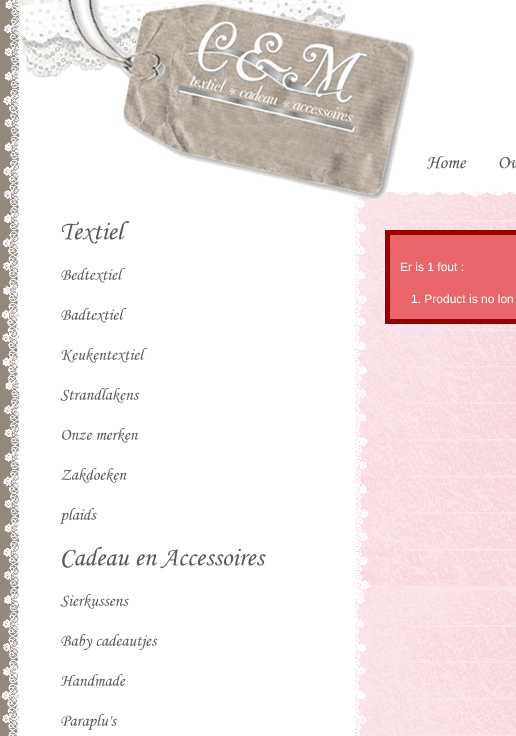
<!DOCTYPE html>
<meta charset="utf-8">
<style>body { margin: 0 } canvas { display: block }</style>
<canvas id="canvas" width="516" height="736"></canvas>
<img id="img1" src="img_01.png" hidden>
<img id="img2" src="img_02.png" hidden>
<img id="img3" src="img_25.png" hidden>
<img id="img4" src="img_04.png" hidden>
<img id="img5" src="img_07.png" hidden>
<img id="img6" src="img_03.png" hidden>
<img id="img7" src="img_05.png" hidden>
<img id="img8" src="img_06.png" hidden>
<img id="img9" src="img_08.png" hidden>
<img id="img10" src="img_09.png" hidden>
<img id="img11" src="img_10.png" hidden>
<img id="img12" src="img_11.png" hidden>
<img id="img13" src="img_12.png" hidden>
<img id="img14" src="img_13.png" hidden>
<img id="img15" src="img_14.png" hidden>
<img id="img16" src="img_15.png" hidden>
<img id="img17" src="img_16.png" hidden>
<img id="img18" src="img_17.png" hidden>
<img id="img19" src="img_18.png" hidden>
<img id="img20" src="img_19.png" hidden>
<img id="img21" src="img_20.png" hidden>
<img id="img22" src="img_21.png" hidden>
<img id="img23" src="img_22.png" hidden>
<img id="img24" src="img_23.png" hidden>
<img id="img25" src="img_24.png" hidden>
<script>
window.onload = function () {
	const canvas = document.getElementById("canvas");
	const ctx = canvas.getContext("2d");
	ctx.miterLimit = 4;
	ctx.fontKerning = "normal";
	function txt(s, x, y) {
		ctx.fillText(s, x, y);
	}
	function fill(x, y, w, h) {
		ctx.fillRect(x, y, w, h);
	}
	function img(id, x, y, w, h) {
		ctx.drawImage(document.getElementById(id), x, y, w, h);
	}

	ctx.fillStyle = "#92887E";
	fill(0, 0, 516, 736);
	img("img1", 0, 0, 516, 736);
	img("img2", 18, 0, 327, 78);
	img("img3", 355, 191, 161, 545);
	img("img4", 384, 180, 132, 17);
	img("img5", 355, 196, 15, 540);
	img("img6", 61, 0, 354, 200);
	img("img7", 427, 156, 40, 13);
	img("img8", 499, 157, 17, 12);
	img("img9", 61, 221, 68, 23);
	img("img10", 61, 268, 64, 15);
	img("img11", 61, 308, 66, 15);
	img("img12", 61, 348, 86, 15);
	img("img13", 60, 388, 80, 15);
	img("img14", 62, 429, 30, 11);
	img("img15", 96, 428, 43, 15);
	img("img16", 61, 468, 66, 15);
	img("img17", 60, 508, 37, 16);
	img("img18", 62, 547, 68, 21);
	img("img19", 136, 554, 21, 12);
	img("img20", 160, 548, 106, 21);
	img("img21", 60, 594, 69, 15);
	img("img22", 61, 634, 32, 16);
	img("img23", 96, 634, 62, 16);
	img("img24", 60, 674, 66, 13);
	img("img25", 61, 714, 56, 16);
	ctx.fillStyle = "#E86669";
	ctx.beginPath();
	ctx.rect(387.5, 232.5, 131, 89);
	ctx.fill();
	ctx.strokeStyle = "#990000";
	ctx.lineWidth = 5;
	ctx.stroke();
	ctx.font = "12px Liberation Sans";
	ctx.fillStyle = "#FFFFFF";
	txt("Er is 1 fout :", 400, 271);
	txt("1. Product is no lon", 411, 303);
};
</script>
